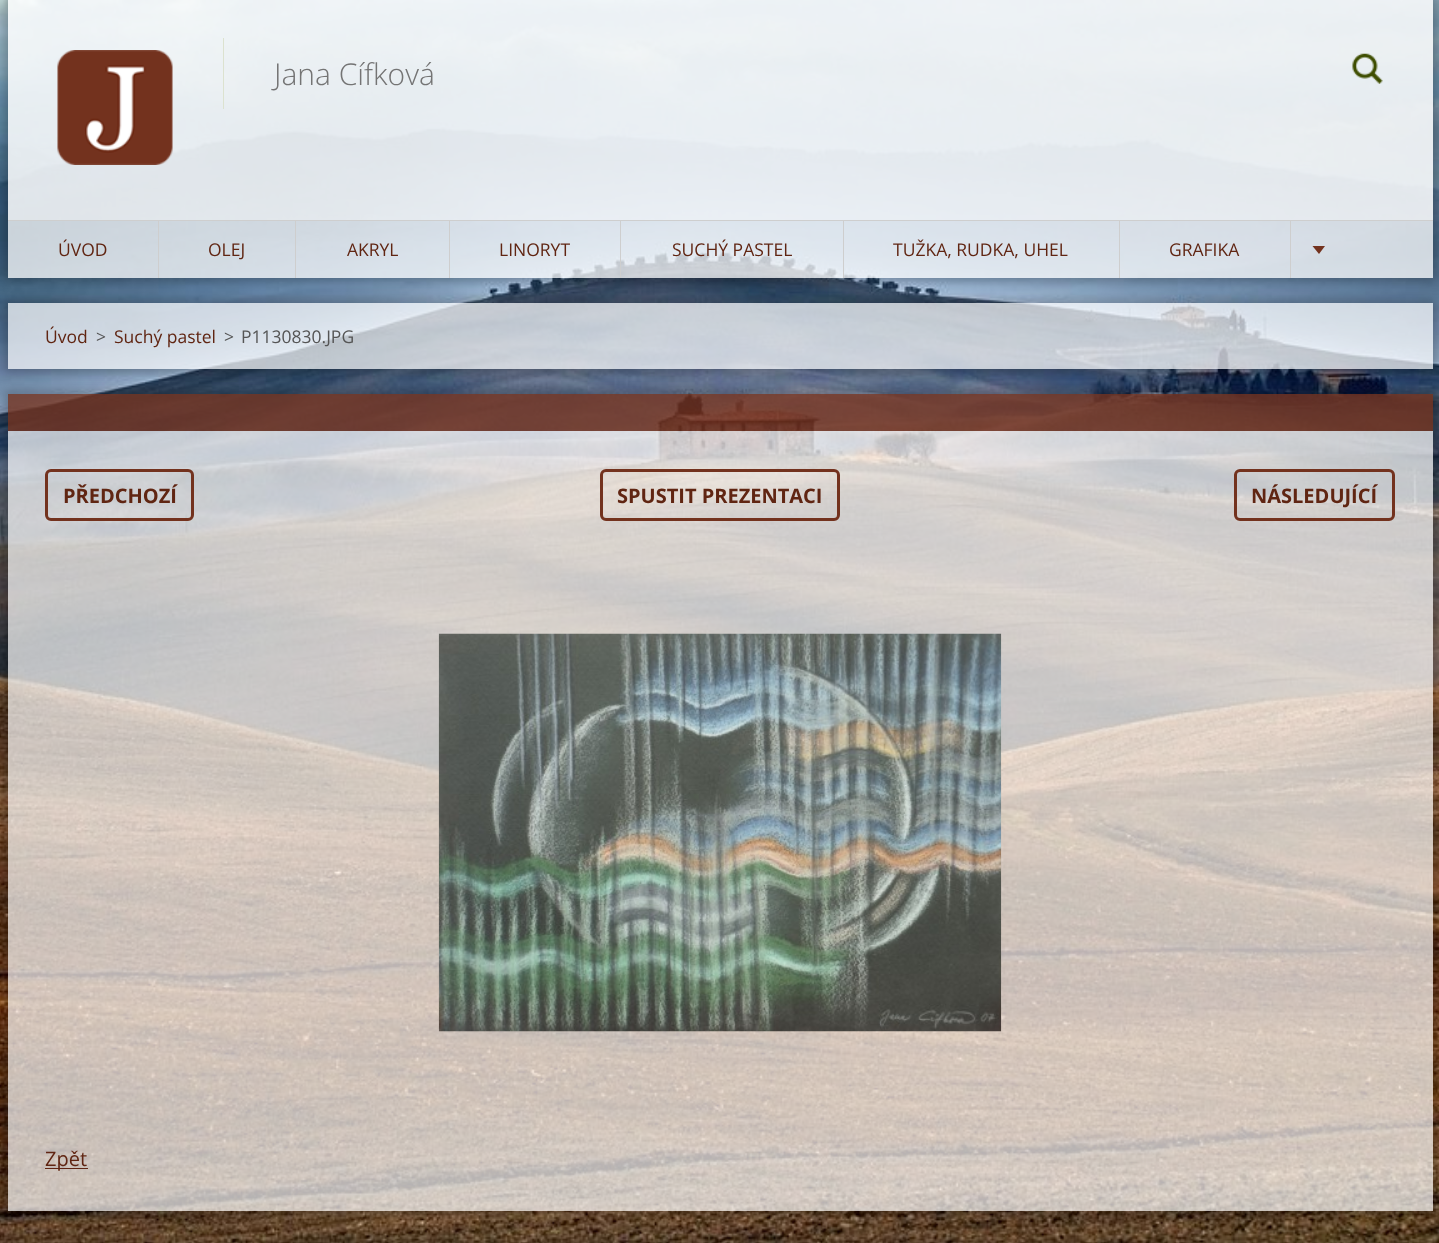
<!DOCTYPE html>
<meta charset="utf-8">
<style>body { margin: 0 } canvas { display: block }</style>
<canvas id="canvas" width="1439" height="1243"></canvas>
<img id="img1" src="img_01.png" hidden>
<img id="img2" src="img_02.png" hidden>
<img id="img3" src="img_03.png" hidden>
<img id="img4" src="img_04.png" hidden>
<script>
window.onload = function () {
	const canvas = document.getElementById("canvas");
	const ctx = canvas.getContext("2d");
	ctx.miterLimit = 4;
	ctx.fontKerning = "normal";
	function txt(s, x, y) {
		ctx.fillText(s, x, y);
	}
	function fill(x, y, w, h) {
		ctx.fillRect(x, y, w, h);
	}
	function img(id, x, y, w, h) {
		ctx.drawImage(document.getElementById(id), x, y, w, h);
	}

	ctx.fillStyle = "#FFFFFF";
	fill(0, 0, 1439, 1243);
	img("img1", 0, 0, 1439, 1243);
	ctx.save();
	ctx.beginPath();
	ctx.moveTo(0, 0);
	ctx.lineTo(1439, 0);
	ctx.lineTo(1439, 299);
	ctx.lineTo(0, 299);
	ctx.closePath();
	ctx.moveTo(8, 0);
	ctx.lineTo(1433, 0);
	ctx.lineTo(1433, 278);
	ctx.lineTo(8, 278);
	ctx.closePath();
	ctx.clip("evenodd");
	ctx.fillStyle = "rgba(0, 0, 0, 0.25)";
	ctx.filter = "blur(5.5px)";
	ctx.beginPath();
	ctx.rect(4, -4, 1432, 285);
	ctx.fill();
	ctx.filter = "none";
	ctx.restore();
	ctx.fillStyle = "rgba(255, 255, 255, 0.85)";
	fill(8, 0, 1425, 220);
	img("img2", 57, 50, 116, 115);
	ctx.fillStyle = "#DCE2CF";
	fill(223, 38, 1, 71);
	img("img3", 1352, 53, 31, 31);
	ctx.fillStyle = "#CECECE";
	fill(8, 220, 1425, 1);
	ctx.fillStyle = "rgba(255, 255, 255, 0.75)";
	fill(8, 221, 1425, 57);
	ctx.fillStyle = "#CECECE";
	fill(158, 221, 1, 57);
	fill(295, 221, 1, 57);
	fill(449, 221, 1, 57);
	fill(620, 221, 1, 57);
	fill(843, 221, 1, 57);
	fill(1119, 221, 1, 57);
	fill(1290, 221, 1, 57);
	ctx.fillStyle = "#73321E";
	ctx.beginPath();
	ctx.moveTo(1312.5, 246);
	ctx.lineTo(1325, 246);
	ctx.lineTo(1319, 254);
	ctx.closePath();
	ctx.fill();
	ctx.save();
	ctx.beginPath();
	ctx.moveTo(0, 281);
	ctx.lineTo(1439, 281);
	ctx.lineTo(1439, 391);
	ctx.lineTo(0, 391);
	ctx.closePath();
	ctx.moveTo(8, 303);
	ctx.lineTo(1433, 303);
	ctx.lineTo(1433, 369);
	ctx.lineTo(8, 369);
	ctx.closePath();
	ctx.clip("evenodd");
	ctx.fillStyle = "rgba(0, 0, 0, 0.25)";
	ctx.filter = "blur(5.5px)";
	ctx.beginPath();
	ctx.rect(4, 299, 1432, 74);
	ctx.fill();
	ctx.filter = "none";
	ctx.restore();
	ctx.fillStyle = "rgba(255, 255, 255, 0.7)";
	fill(8, 303, 1425, 66);
	ctx.save();
	ctx.beginPath();
	ctx.moveTo(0, 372);
	ctx.lineTo(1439, 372);
	ctx.lineTo(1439, 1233);
	ctx.lineTo(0, 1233);
	ctx.closePath();
	ctx.moveTo(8, 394);
	ctx.lineTo(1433, 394);
	ctx.lineTo(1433, 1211);
	ctx.lineTo(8, 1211);
	ctx.closePath();
	ctx.clip("evenodd");
	ctx.fillStyle = "rgba(0, 0, 0, 0.25)";
	ctx.filter = "blur(5.5px)";
	ctx.beginPath();
	ctx.rect(4, 390, 1432, 825);
	ctx.fill();
	ctx.filter = "none";
	ctx.restore();
	ctx.fillStyle = "rgba(115, 50, 30, 0.8)";
	fill(8, 394, 1425, 37);
	ctx.fillStyle = "rgba(255, 255, 255, 0.7)";
	fill(8, 431, 1425, 713);
	ctx.beginPath();
	ctx.roundRect(46.5, 470.5, 146, 49, 4.5);
	ctx.strokeStyle = "#73321E";
	ctx.lineWidth = 3;
	ctx.stroke();
	ctx.beginPath();
	ctx.roundRect(601.5, 470.5, 237, 49, 4.5);
	ctx.stroke();
	ctx.beginPath();
	ctx.roundRect(1235.5, 470.5, 158, 49, 4.5);
	ctx.stroke();
	img("img4", 438, 633, 564, 399);
	fill(8, 1144, 1425, 67);
	ctx.fillStyle = "#602512";
	fill(45, 1168, 43, 1);
	ctx.fillStyle = "rgba(0, 0, 0, 0.25)";
	ctx.filter = "blur(5.5px)";
	ctx.beginPath();
	ctx.rect(4, 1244, 1432, 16);
	ctx.fill();
	ctx.filter = "none";
	ctx.font = "300 30px Open Sans";
	ctx.fillStyle = "#747474";
	txt("Jana Cífková", 274, 85);
	ctx.font = "17.5px Open Sans";
	ctx.fillStyle = "#602512";
	txt("ÚVOD", 58, 256);
	txt("OLEJ", 208, 256);
	txt("AKRYL", 347, 256);
	txt("LINORYT", 499, 256);
	txt("SUCHÝ PASTEL", 672, 256);
	txt("TUŽKA, RUDKA, UHEL", 893, 256);
	txt("GRAFIKA", 1169, 256);
	txt("Úvod", 45, 343);
	ctx.fillStyle = "#555555";
	txt(">", 96, 343);
	ctx.fillStyle = "#602512";
	txt("Suchý pastel", 114, 343);
	ctx.fillStyle = "#555555";
	txt(">", 224, 343);
	txt("P1130830.JPG", 241, 343);
	ctx.font = "bold 20px Open Sans";
	ctx.fillStyle = "#602512";
	txt("PŘEDCHOZÍ", 63, 503);
	txt("SPUSTIT PREZENTACI", 617, 503);
	txt("NÁSLEDUJÍCÍ", 1251, 503);
	ctx.font = "20px Open Sans";
	txt("Zpět", 45, 1166);
};
</script>
